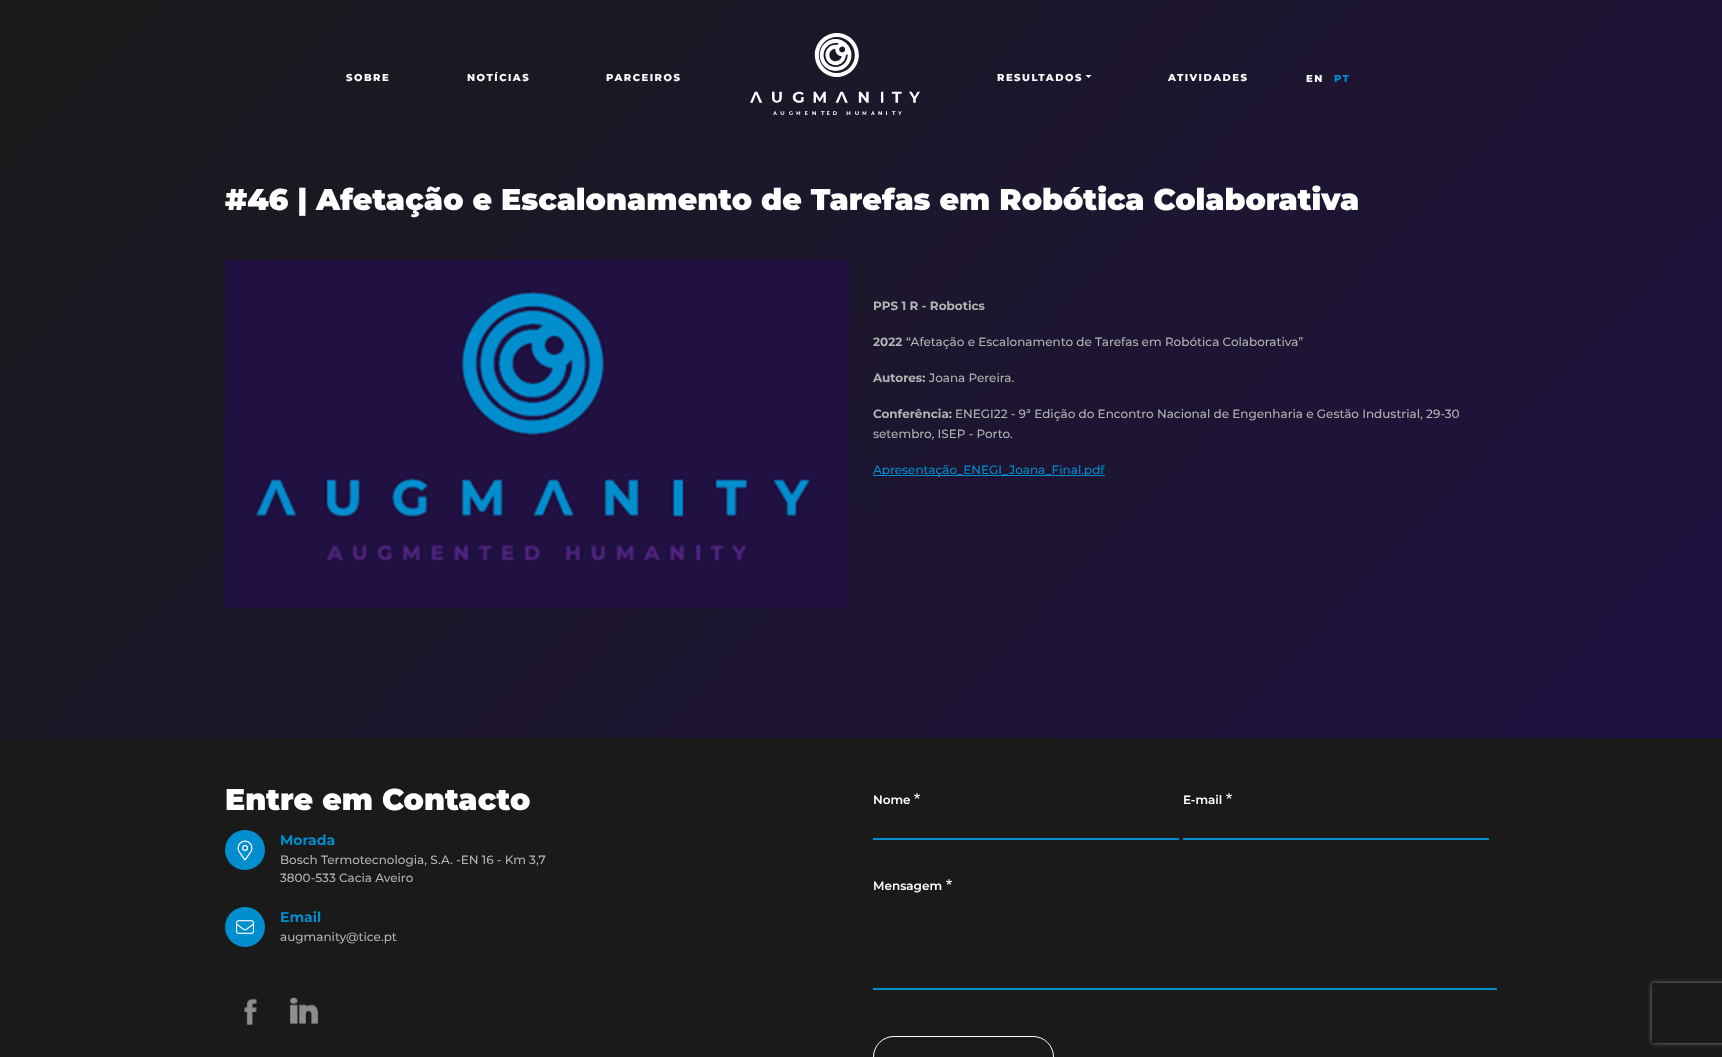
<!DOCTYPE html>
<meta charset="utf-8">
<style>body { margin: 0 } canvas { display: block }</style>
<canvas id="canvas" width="1722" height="1057"></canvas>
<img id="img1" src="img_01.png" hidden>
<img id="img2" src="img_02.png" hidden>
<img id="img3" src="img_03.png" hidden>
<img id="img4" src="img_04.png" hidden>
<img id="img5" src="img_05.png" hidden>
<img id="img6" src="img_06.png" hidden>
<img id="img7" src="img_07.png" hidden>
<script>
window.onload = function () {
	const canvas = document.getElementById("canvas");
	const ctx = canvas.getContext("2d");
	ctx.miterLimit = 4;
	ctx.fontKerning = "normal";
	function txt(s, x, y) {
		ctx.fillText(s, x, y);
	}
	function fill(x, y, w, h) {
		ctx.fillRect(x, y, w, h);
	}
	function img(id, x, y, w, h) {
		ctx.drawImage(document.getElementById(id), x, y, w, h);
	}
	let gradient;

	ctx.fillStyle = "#FFFFFF";
	fill(0, 0, 1722, 1057);
	gradient = ctx.createLinearGradient(226, -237, 1496, 975);
	gradient.addColorStop(0, "#1A1A1A");
	gradient.addColorStop(1, "#1F1242");
	ctx.fillStyle = gradient;
	fill(0, 0, 1722, 738);
	img("img1", 750, 33, 170, 82);
	ctx.fillStyle = "#FFFFFF";
	ctx.beginPath();
	ctx.moveTo(1085.5, 75);
	ctx.lineTo(1091.5, 75);
	ctx.lineTo(1088.5, 78);
	ctx.closePath();
	ctx.fill();
	img("img2", 225, 260, 624, 348);
	ctx.fillStyle = "#008ECF";
	fill(873, 475, 232, 1);
	ctx.fillStyle = "#1A1A1A";
	fill(0, 738, 1722, 319);
	img("img3", 225, 830, 40, 40);
	img("img4", 225, 907, 40, 40);
	img("img5", 244, 998, 13, 27);
	img("img6", 290, 997, 29, 28);
	img("img7", 914, 793, 6, 6);
	ctx.fillStyle = "#008ECF";
	fill(873, 838, 306, 2);
	img("img7", 1226, 793, 6, 6);
	fill(1183, 838, 306, 2);
	img("img7", 946, 879, 6, 6);
	fill(873, 988, 624, 2);
	ctx.beginPath();
	ctx.roundRect(873.5, 1036.5, 180, 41, 20.5);
	ctx.strokeStyle = "#FFFFFF";
	ctx.stroke();
	ctx.save();
	ctx.beginPath();
	ctx.moveTo(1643, 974);
	ctx.lineTo(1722, 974);
	ctx.lineTo(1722, 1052);
	ctx.lineTo(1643, 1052);
	ctx.closePath();
	ctx.moveTo(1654, 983);
	ctx.lineTo(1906, 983);
	ctx.bezierCurveTo(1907, 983, 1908, 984, 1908, 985);
	ctx.lineTo(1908, 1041);
	ctx.bezierCurveTo(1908, 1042, 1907, 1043, 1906, 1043);
	ctx.lineTo(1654, 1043);
	ctx.bezierCurveTo(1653, 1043, 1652, 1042, 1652, 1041);
	ctx.lineTo(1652, 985);
	ctx.bezierCurveTo(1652, 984, 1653, 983, 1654, 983);
	ctx.closePath();
	ctx.clip("evenodd");
	ctx.fillStyle = "#808080";
	ctx.filter = "blur(2.5px)";
	ctx.beginPath();
	ctx.roundRect(1652, 983, 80, 60, 2);
	ctx.fill();
	ctx.filter = "none";
	ctx.restore();
	ctx.letterSpacing = "1.5px";
	ctx.font = "800 10px Montserrat";
	ctx.fillStyle = "#FFFFFF";
	txt("SOBRE", 346, 81);
	txt("NOTÍCIAS", 467, 81);
	txt("PARCEIROS", 606, 81);
	txt("RESULTADOS", 997, 81);
	txt("ATIVIDADES", 1168, 81);
	txt("EN", 1306, 82);
	ctx.fillStyle = "#008ECF";
	txt("PT", 1334, 82);
	ctx.letterSpacing = "0px";
	ctx.font = "900 30px Montserrat";
	ctx.fillStyle = "#FFFFFF";
	txt("#46 | Afetação e Escalonamento de Tarefas em Robótica Colaborativa", 225, 210);
	ctx.font = "bold 12px Montserrat";
	ctx.fillStyle = "#B3B3B3";
	txt("PPS 1 R - Robotics", 873, 310);
	txt("2022", 873, 346);
	ctx.font = "500 12px Montserrat";
	txt("“Afetação e Escalonamento de Tarefas em Robótica Colaborativa”", 906, 346);
	ctx.font = "bold 12px Montserrat";
	txt("Autores:", 873, 382);
	ctx.font = "500 12px Montserrat";
	txt("Joana Pereira.", 929, 382);
	ctx.font = "bold 12px Montserrat";
	txt("Conferência:", 873, 418);
	ctx.font = "500 12px Montserrat";
	txt("ENEGI22 - 9ª Edição do Encontro Nacional de Engenharia e Gestão Industrial, 29-30", 955, 418);
	txt("setembro, ISEP - Porto.", 873, 438);
	ctx.fillStyle = "#008ECF";
	txt("Apresentação_ENEGI_Joana_Final.pdf", 873, 474);
	ctx.font = "900 30px Montserrat";
	ctx.fillStyle = "#FFFFFF";
	txt("Entre em Contacto", 225, 810);
	ctx.font = "bold 14px Montserrat";
	ctx.fillStyle = "#008ECF";
	txt("Morada", 280, 845);
	ctx.font = "500 12px Montserrat";
	ctx.fillStyle = "#B3B3B3";
	txt("Bosch Termotecnologia, S.A. -EN 16 - Km 3,7", 280, 864);
	txt("3800-533 Cacia Aveiro", 280, 882);
	ctx.font = "bold 14px Montserrat";
	ctx.fillStyle = "#008ECF";
	txt("Email", 280, 922);
	ctx.font = "500 12px Montserrat";
	ctx.fillStyle = "#B3B3B3";
	txt("augmanity@tice.pt", 280, 941);
	ctx.font = "600 12px Montserrat";
	ctx.fillStyle = "#FFFFFF";
	txt("Nome", 873, 804);
	txt("E-mail", 1183, 804);
	txt("Mensagem", 873, 890);
};
</script>
